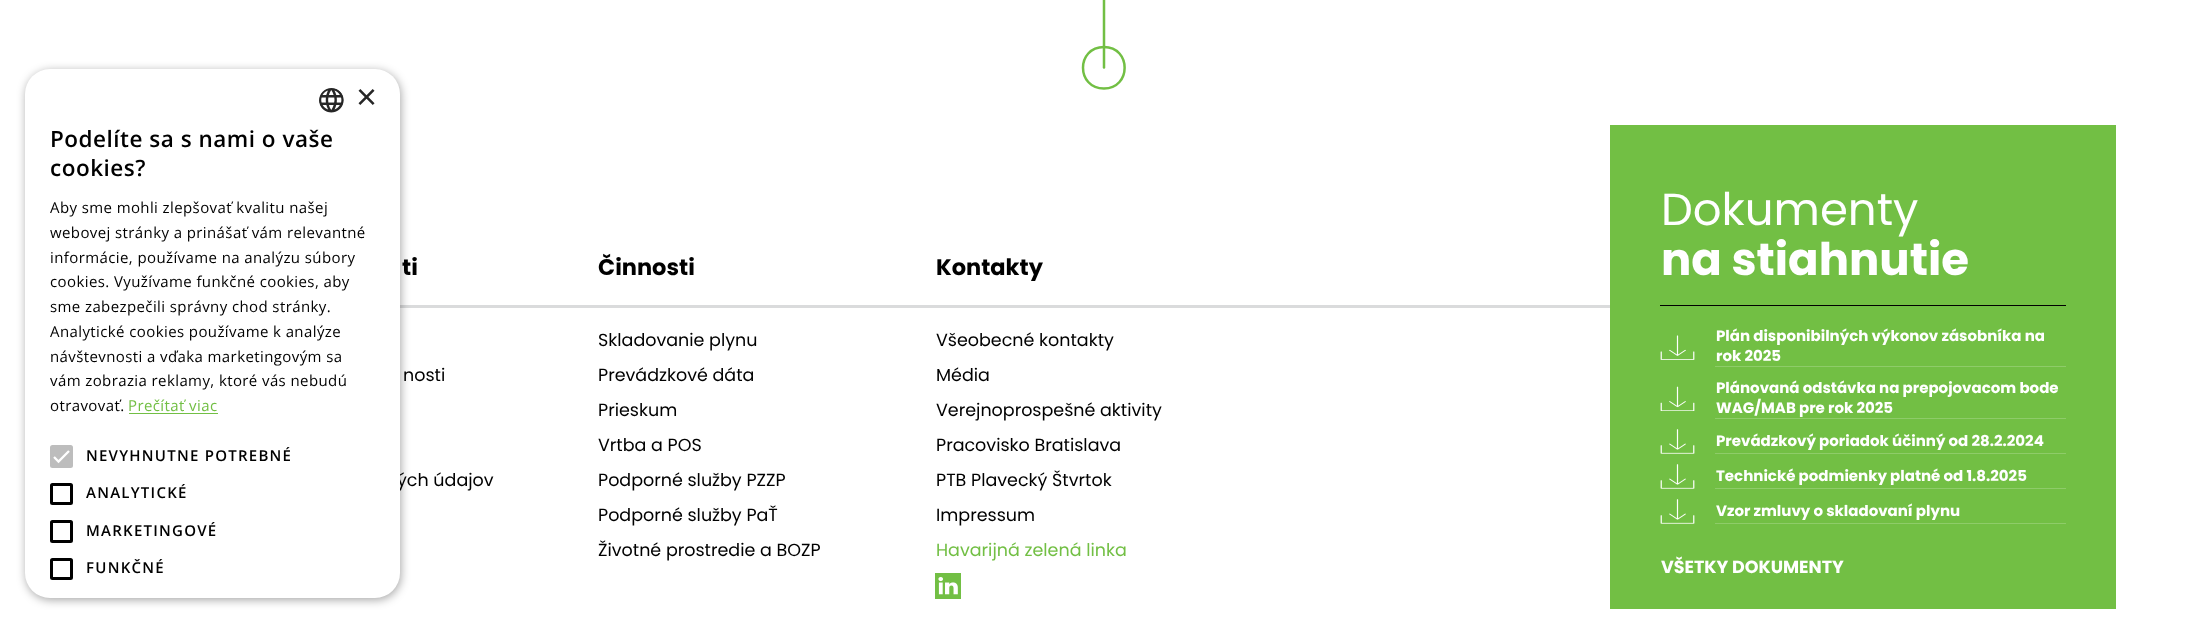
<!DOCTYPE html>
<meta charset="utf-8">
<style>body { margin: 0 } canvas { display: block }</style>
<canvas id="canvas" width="2208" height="622"></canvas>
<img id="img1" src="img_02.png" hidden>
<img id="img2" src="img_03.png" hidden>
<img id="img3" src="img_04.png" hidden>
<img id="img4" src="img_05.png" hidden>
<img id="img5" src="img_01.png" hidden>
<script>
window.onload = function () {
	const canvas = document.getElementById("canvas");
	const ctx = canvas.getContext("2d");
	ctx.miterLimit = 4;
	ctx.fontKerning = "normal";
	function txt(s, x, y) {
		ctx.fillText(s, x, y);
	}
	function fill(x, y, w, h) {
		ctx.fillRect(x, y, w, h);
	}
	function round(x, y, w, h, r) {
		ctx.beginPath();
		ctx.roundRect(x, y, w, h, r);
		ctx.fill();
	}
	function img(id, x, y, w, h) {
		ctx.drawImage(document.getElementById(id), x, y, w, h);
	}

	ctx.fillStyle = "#FFFFFF";
	fill(0, 0, 2208, 622);
	ctx.fillStyle = "#DADBDC";
	fill(400, 305, 1210, 3);
	ctx.fillStyle = "rgba(0, 0, 0, 0.35)";
	ctx.filter = "blur(5px)";
	ctx.beginPath();
	ctx.roundRect(26, 71, 375, 529, 25);
	ctx.fill();
	ctx.filter = "none";
	ctx.beginPath();
	ctx.moveTo(1104, 67.5);
	ctx.lineTo(1104, -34);
	ctx.strokeStyle = "#72BF44";
	ctx.lineWidth = 2.5;
	ctx.lineCap = "round";
	ctx.stroke();
	ctx.beginPath();
	ctx.moveTo(1104, 88.5);
	ctx.bezierCurveTo(1076, 88.5, 1076, 47, 1104, 47);
	ctx.bezierCurveTo(1131.5, 47, 1131.5, 88.5, 1104, 88.5);
	ctx.closePath();
	ctx.stroke();
	ctx.fillStyle = "#72BF44";
	fill(935, 573, 26, 26);
	img("img1", 938, 577, 20, 18);
	fill(1610, 125, 506, 484);
	ctx.fillStyle = "#000000";
	fill(1660, 305, 406, 1);
	img("img2", 1660, 335, 35, 25);
	ctx.fillStyle = "#8ECC69";
	fill(1715, 366, 351, 1);
	img("img3", 1660, 386, 35, 25);
	fill(1715, 418, 351, 1);
	img("img4", 1660, 429, 35, 25);
	fill(1715, 453, 351, 1);
	img("img4", 1660, 464, 35, 25);
	fill(1715, 488, 351, 1);
	img("img4", 1660, 499, 35, 25);
	fill(1715, 523, 351, 1);
	ctx.font = "bold 22.5px Poppins";
	ctx.fillStyle = "#000000";
	txt("ti", 402, 275);
	ctx.font = "17.5px Poppins";
	txt("nosti", 403, 381);
	txt("ých údajov", 397, 486);
	ctx.fillStyle = "#FFFFFF";
	round(25, 69, 375, 529, 25);
	ctx.font = "36px Liberation Sans";
	ctx.fillStyle = "#262626";
	txt("×", 356, 109);
	ctx.beginPath();
	ctx.roundRect(51.5, 559.5, 20, 19, 1);
	ctx.strokeStyle = "#000000";
	ctx.lineWidth = 3;
	ctx.stroke();
	ctx.beginPath();
	ctx.roundRect(51.5, 521.5, 20, 20, 1);
	ctx.stroke();
	ctx.beginPath();
	ctx.roundRect(51.5, 484.5, 20, 19, 1);
	ctx.stroke();
	ctx.fillStyle = "#BDBDBD";
	round(50, 445, 23, 23, 2.5);
	ctx.beginPath();
	ctx.moveTo(54, 457);
	ctx.lineTo(58.5, 461.5);
	ctx.lineTo(69, 451);
	ctx.strokeStyle = "#FFFFFF";
	ctx.lineWidth = 2.3;
	ctx.lineCap = "butt";
	ctx.stroke();
	img("img5", 319, 88, 25, 25);
	ctx.letterSpacing = "1.25px";
	ctx.font = "600 15px Open Sans";
	ctx.fillStyle = "#000000";
	txt("FUNKČNÉ", 86, 573);
	txt("MARKETINGOVÉ", 86, 536);
	txt("ANALYTICKÉ", 86, 498);
	txt("NEVYHNUTNE POTREBNÉ", 86, 461);
	ctx.letterSpacing = "0.4px";
	ctx.font = "15px Open Sans";
	ctx.fillStyle = "#72BF44";
	txt("Prečítať viac", 128, 411);
	fill(129, 413, 89, 1);
	ctx.fillStyle = "#000000";
	txt("otravovať.", 50, 411);
	txt("vám zobrazia reklamy, ktoré vás nebudú", 50, 386);
	txt("návštevnosti a vďaka marketingovým sa", 50, 362);
	txt("Analytické cookies používame k analýze", 50, 337);
	txt("sme zabezpečili správny chod stránky.", 50, 312);
	txt("cookies. Využívame funkčné cookies, aby", 50, 287);
	txt("informácie, používame na analýzu súbory", 50, 263);
	txt("webovej stránky a prinášať vám relevantné", 50, 238);
	txt("Aby sme mohli zlepšovať kvalitu našej", 50, 213);
	ctx.letterSpacing = "0.5px";
	ctx.font = "600 22.5px Open Sans";
	txt("cookies?", 50, 176);
	txt("Podelíte sa s nami o vaše", 50, 147);
	ctx.letterSpacing = "0px";
	ctx.font = "bold 22.5px Poppins";
	txt("Činnosti", 598, 275);
	ctx.font = "17.5px Poppins";
	txt("Skladovanie plynu", 598, 346);
	txt("Prevádzkové dáta", 598, 381);
	txt("Prieskum", 598, 416);
	txt("Vrtba a POS", 598, 451);
	txt("Podporné služby PZZP", 598, 486);
	txt("Podporné služby PaŤ", 598, 521);
	txt("Životné prostredie a BOZP", 598, 556);
	ctx.font = "bold 22.5px Poppins";
	txt("Kontakty", 936, 275);
	ctx.font = "17.5px Poppins";
	txt("Všeobecné kontakty", 936, 346);
	txt("Média", 936, 381);
	txt("Verejnoprospešné aktivity", 936, 416);
	txt("Pracovisko Bratislava", 936, 451);
	txt("PTB Plavecký Štvrtok", 936, 486);
	txt("Impressum", 936, 521);
	ctx.fillStyle = "#72BF44";
	txt("Havarijná zelená linka", 936, 556);
	ctx.font = "45px Poppins";
	ctx.fillStyle = "#FFFFFF";
	txt("Dokumenty", 1661, 225);
	ctx.font = "bold 45px Poppins";
	txt("na stiahnutie", 1661, 275);
	ctx.font = "bold 15px Poppins";
	txt("Plán disponibilných výkonov zásobníka na", 1716, 341);
	txt("rok 2025", 1716, 361);
	txt("Plánovaná odstávka na prepojovacom bode", 1716, 393);
	txt("WAG/MAB pre rok 2025", 1716, 413);
	txt("Prevádzkový poriadok účinný od 28.2.2024", 1716, 446);
	txt("Technické podmienky platné od 1.8.2025", 1716, 481);
	txt("Vzor zmluvy o skladovaní plynu", 1716, 516);
	ctx.font = "bold 17.5px Poppins";
	txt("VŠETKY DOKUMENTY", 1661, 573);
};
</script>
